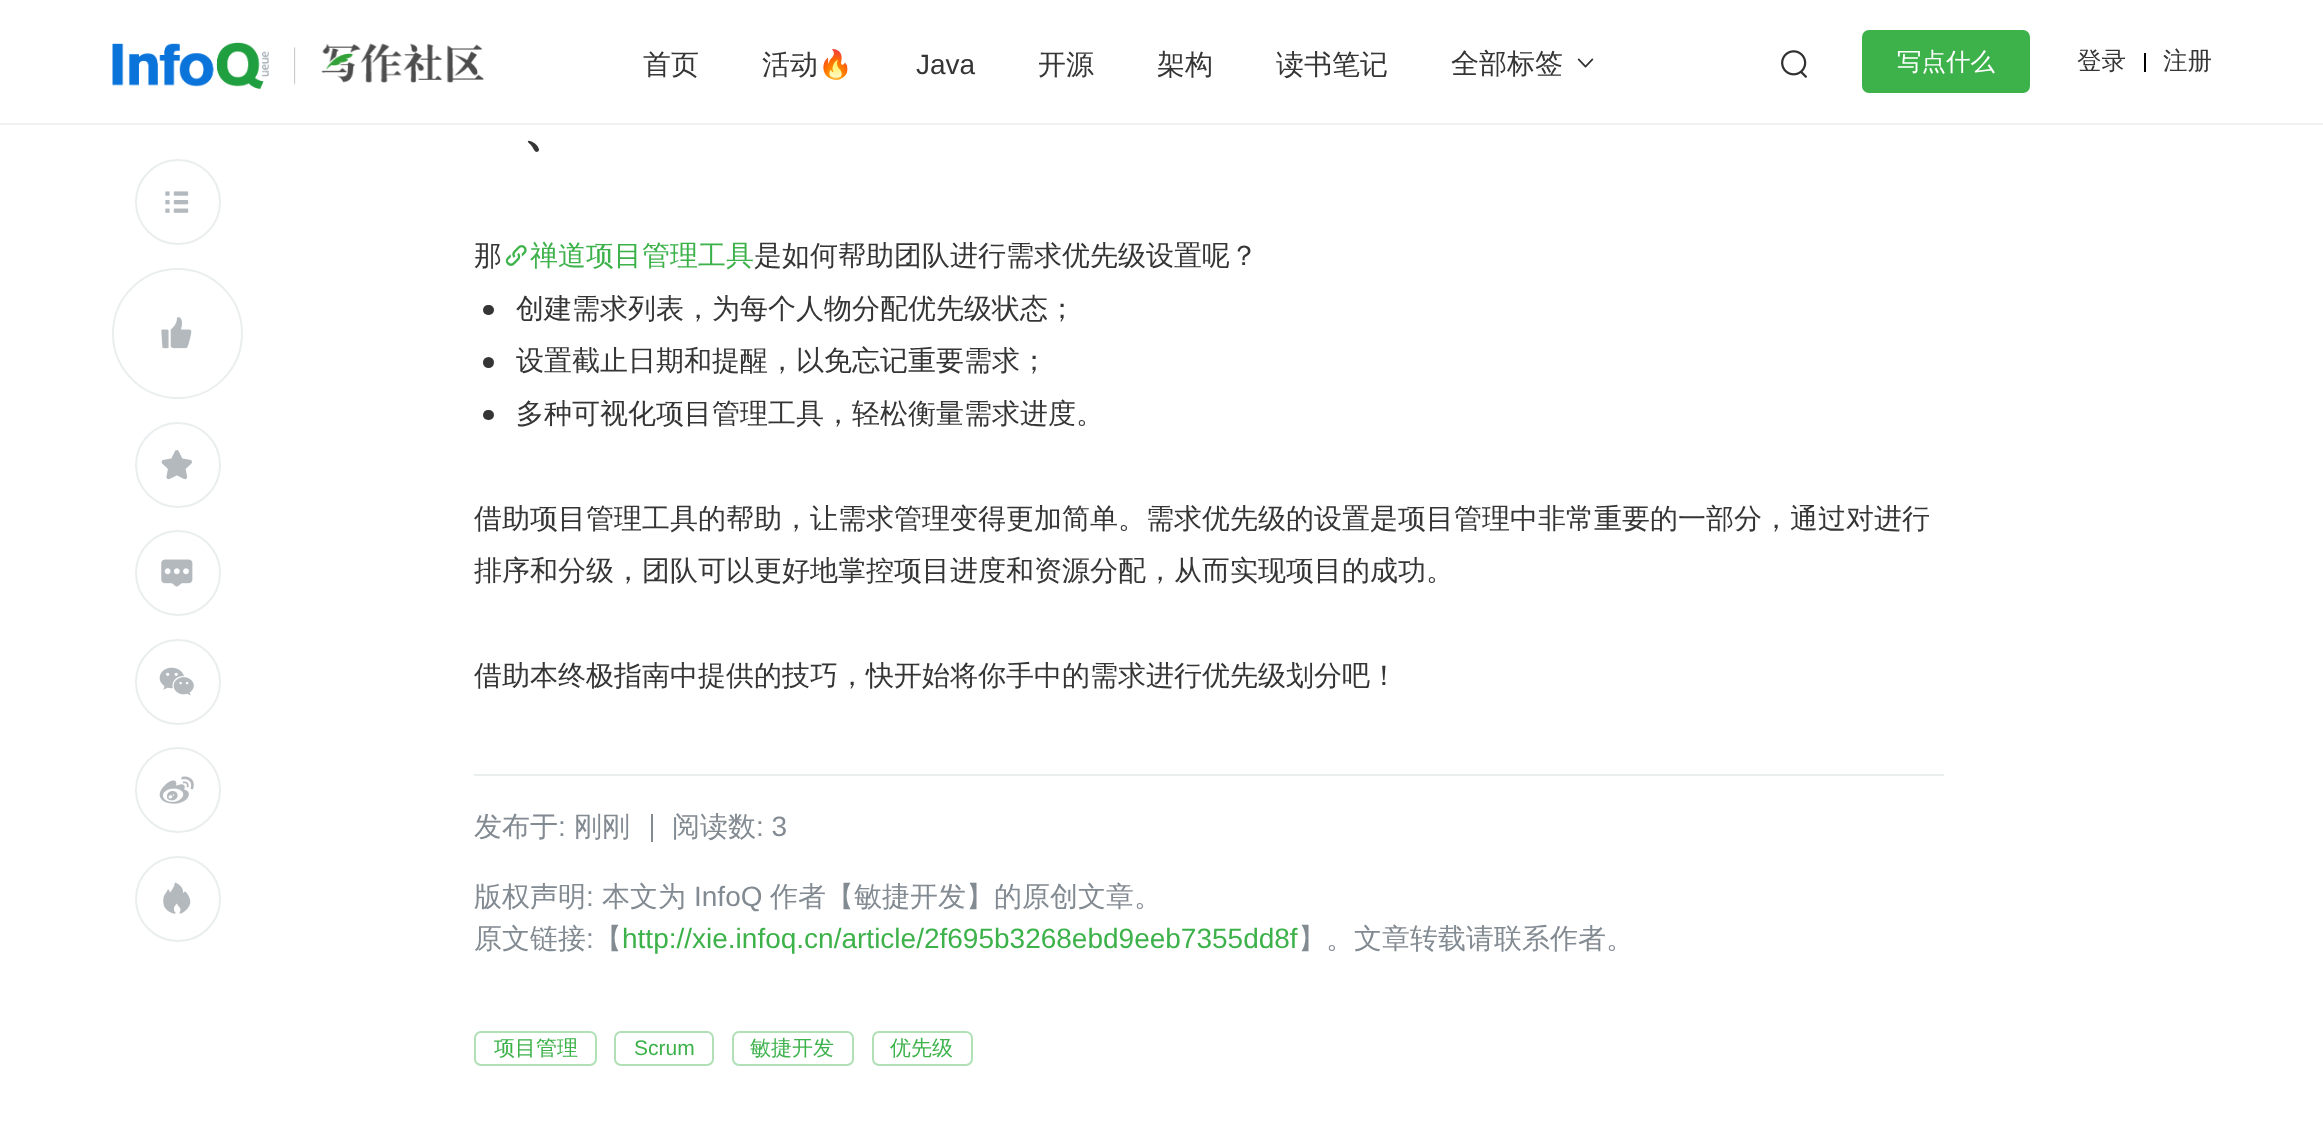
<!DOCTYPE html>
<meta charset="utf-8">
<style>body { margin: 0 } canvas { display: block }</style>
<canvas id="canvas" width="2323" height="1145"></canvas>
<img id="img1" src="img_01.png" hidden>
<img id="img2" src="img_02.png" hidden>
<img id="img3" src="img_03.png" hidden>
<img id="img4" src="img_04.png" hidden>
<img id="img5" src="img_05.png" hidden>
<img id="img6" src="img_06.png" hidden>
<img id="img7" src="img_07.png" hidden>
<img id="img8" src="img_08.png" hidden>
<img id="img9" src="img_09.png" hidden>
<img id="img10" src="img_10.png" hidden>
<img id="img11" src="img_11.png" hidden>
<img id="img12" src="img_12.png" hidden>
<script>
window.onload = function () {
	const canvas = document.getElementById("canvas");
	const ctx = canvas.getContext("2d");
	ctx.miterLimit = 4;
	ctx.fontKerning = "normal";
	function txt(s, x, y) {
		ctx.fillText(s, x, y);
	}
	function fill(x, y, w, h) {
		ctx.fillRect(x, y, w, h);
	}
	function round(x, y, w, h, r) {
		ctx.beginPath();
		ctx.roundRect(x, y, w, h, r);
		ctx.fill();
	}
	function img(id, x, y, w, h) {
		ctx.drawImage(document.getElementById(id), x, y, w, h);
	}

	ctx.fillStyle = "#FFFFFF";
	fill(0, 0, 2323, 1145);
	ctx.fillStyle = "#F0F1F3";
	fill(0, 123, 2323, 2);
	img("img1", 112, 42, 184, 47);
	img("img2", 321, 43, 163, 40);
	img("img3", 1577, 58, 17, 10);
	img("img4", 1781, 50, 26, 28);
	ctx.fillStyle = "#3DB24B";
	ctx.beginPath();
	ctx.roundRect(1863, 31, 166, 61, 6);
	ctx.fill();
	ctx.strokeStyle = "#3DB24B";
	ctx.lineWidth = 2;
	ctx.stroke();
	ctx.fillStyle = "#000000";
	fill(2144, 53, 2, 19);
	ctx.beginPath();
	ctx.arc(178, 202, 42, 0, Math.PI * 2);
	ctx.strokeStyle = "#EAEEEF";
	ctx.stroke();
	img("img5", 165, 191, 24, 22);
	ctx.beginPath();
	ctx.arc(177.5, 333.5, 64.5, 0, Math.PI * 2);
	ctx.stroke();
	img("img6", 161, 317, 31, 32);
	ctx.beginPath();
	ctx.arc(178, 465, 42, 0, Math.PI * 2);
	ctx.stroke();
	img("img7", 161, 450, 31, 30);
	ctx.beginPath();
	ctx.arc(178, 573, 42, 0, Math.PI * 2);
	ctx.stroke();
	img("img8", 161, 559, 32, 28);
	ctx.beginPath();
	ctx.arc(178, 682, 42, 0, Math.PI * 2);
	ctx.stroke();
	img("img9", 159, 667, 35, 29);
	ctx.beginPath();
	ctx.arc(178, 790, 42, 0, Math.PI * 2);
	ctx.stroke();
	img("img10", 159, 776, 35, 28);
	ctx.beginPath();
	ctx.arc(178, 899, 42, 0, Math.PI * 2);
	ctx.stroke();
	img("img11", 163, 882, 28, 32);
	ctx.fillStyle = "#EAEEEF";
	fill(474, 774, 1470, 2);
	img("img12", 505, 245, 22, 21);
	ctx.fillStyle = "#353535";
	round(483, 305, 11, 10, 5);
	ctx.beginPath();
	ctx.arc(488.5, 362.5, 5.5, 0, Math.PI * 2);
	ctx.fill();
	round(483, 410, 11, 10, 5);
	ctx.fillStyle = "#828A92";
	fill(651, 814, 2, 28);
	ctx.beginPath();
	ctx.roundRect(475, 1032, 121, 33, 6);
	ctx.strokeStyle = "#B1E0B7";
	ctx.stroke();
	ctx.beginPath();
	ctx.roundRect(615, 1032, 98, 33, 6);
	ctx.stroke();
	ctx.beginPath();
	ctx.roundRect(733, 1032, 120, 33, 6);
	ctx.stroke();
	ctx.beginPath();
	ctx.roundRect(873, 1032, 99, 33, 6);
	ctx.stroke();
	ctx.font = "500 28px WenQuanYi Zen Hei";
	ctx.fillStyle = "#353535";
	txt("首页", 643, 74);
	txt("活动", 762, 74);
	ctx.font = "28px Noto Color Emoji";
	txt("🔥", 818, 74);
	ctx.font = "28px Liberation Sans";
	txt("Java", 916, 74);
	ctx.font = "500 28px WenQuanYi Zen Hei";
	txt("开源", 1038, 74);
	txt("架构", 1157, 74);
	txt("读书笔记", 1276, 74);
	txt("全部标签", 1451, 73);
	ctx.font = "500 24.5px WenQuanYi Zen Hei";
	ctx.fillStyle = "#FFFFFF";
	txt("写点什么", 1897, 70);
	ctx.fillStyle = "#353535";
	txt("登录", 2077, 69);
	txt("注册", 2163, 69);
	ctx.font = "bold 49px WenQuanYi Zen Hei";
	txt("、", 523, 146);
	ctx.font = "500 28px WenQuanYi Zen Hei";
	txt("那", 474, 265);
	ctx.fillStyle = "#3DB24B";
	txt("禅道项目管理工具", 530, 265);
	ctx.fillStyle = "#353535";
	txt("是如何帮助团队进行需求优先级设置呢？", 754, 265);
	txt("创建需求列表，为每个人物分配优先级状态；", 516, 318);
	txt("设置截止日期和提醒，以免忘记重要需求；", 516, 370);
	txt("多种可视化项目管理工具，轻松衡量需求进度。", 516, 423);
	txt("借助项目管理工具的帮助，让需求管理变得更加简单。需求优先级的设置是项目管理中非常重要的一部分，通过对进行", 474, 528);
	txt("排序和分级，团队可以更好地掌控项目进度和资源分配，从而实现项目的成功。", 474, 580);
	txt("借助本终极指南中提供的技巧，快开始将你手中的需求进行优先级划分吧！", 474, 685);
	ctx.fillStyle = "#828A92";
	txt("发布于", 474, 836);
	ctx.font = "28px Liberation Sans";
	txt(":", 558, 836);
	ctx.font = "500 28px WenQuanYi Zen Hei";
	txt("刚刚", 574, 836);
	txt("阅读数", 672, 836);
	ctx.font = "28px Liberation Sans";
	txt(": 3", 756, 836);
	ctx.font = "500 28px WenQuanYi Zen Hei";
	txt("版权声明", 474, 906);
	ctx.font = "28px Liberation Sans";
	txt(":", 586, 906);
	ctx.font = "500 28px WenQuanYi Zen Hei";
	txt("本文为", 602, 906);
	ctx.font = "28px Liberation Sans";
	txt("InfoQ", 694, 906);
	ctx.font = "500 28px WenQuanYi Zen Hei";
	txt("作者【敏捷开发】的原创文章。", 770, 906);
	txt("原文链接", 474, 948);
	ctx.font = "28px Liberation Sans";
	txt(":", 586, 948);
	ctx.font = "500 28px WenQuanYi Zen Hei";
	txt("【", 594, 948);
	ctx.font = "28px Liberation Sans";
	ctx.fillStyle = "#3DB24B";
	txt("http://xie.infoq.cn/article/2f695b3268ebd9eeb7355dd8f", 622, 948);
	ctx.font = "500 28px WenQuanYi Zen Hei";
	ctx.fillStyle = "#828A92";
	txt("】。文章转载请联系作者。", 1298, 948);
	ctx.font = "500 21px WenQuanYi Zen Hei";
	ctx.fillStyle = "#3DB24B";
	txt("项目管理", 494, 1055);
	ctx.font = "21px Liberation Sans";
	txt("Scrum", 634, 1055);
	ctx.font = "500 21px WenQuanYi Zen Hei";
	txt("敏捷开发", 750, 1055);
	txt("优先级", 890, 1055);
};
</script>
